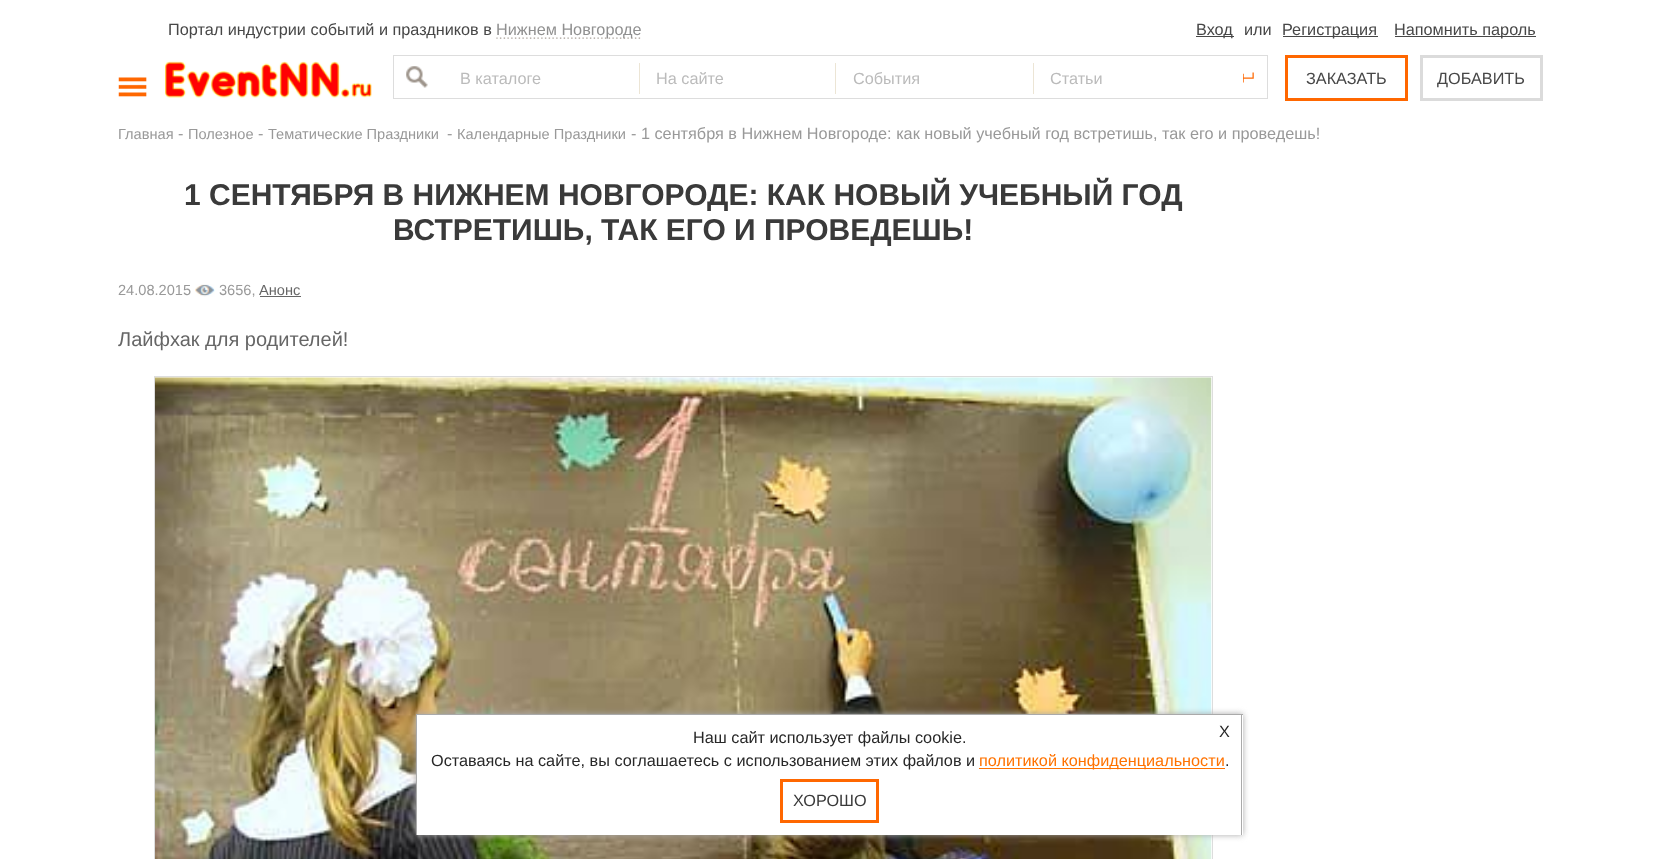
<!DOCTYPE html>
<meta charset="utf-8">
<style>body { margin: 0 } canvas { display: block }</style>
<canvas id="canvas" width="1659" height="859"></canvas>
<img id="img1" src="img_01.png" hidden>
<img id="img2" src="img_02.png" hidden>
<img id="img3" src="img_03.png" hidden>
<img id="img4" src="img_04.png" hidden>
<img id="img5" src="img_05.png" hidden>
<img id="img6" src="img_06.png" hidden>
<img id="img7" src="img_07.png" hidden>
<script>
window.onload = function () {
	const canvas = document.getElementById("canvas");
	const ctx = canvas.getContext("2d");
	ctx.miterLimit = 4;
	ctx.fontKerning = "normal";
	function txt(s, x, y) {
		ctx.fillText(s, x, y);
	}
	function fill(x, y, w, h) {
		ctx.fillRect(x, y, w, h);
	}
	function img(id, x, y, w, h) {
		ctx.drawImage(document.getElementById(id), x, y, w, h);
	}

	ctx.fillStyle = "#FFFFFF";
	fill(0, 0, 1659, 859);
	img("img1", 496, 37, 145, 2);
	ctx.fillStyle = "#474747";
	fill(1196, 36, 38, 1);
	fill(1283, 36, 95, 1);
	fill(1395, 36, 141, 1);
	img("img2", 118, 77, 29, 20);
	img("img3", 165, 61, 207, 37);
	ctx.strokeStyle = "#DDDDDD";
	ctx.strokeRect(393.5, 55.5, 874, 43);
	img("img4", 406, 66, 22, 22);
	ctx.fillStyle = "#ECE5D5";
	fill(639, 63, 1, 31);
	fill(835, 63, 1, 31);
	fill(1033, 63, 1, 31);
	img("img5", 1243, 72, 11, 11);
	ctx.strokeStyle = "#FF6700";
	ctx.lineWidth = 3;
	ctx.strokeRect(1286.5, 56.5, 120, 43);
	ctx.strokeStyle = "#DBDBDB";
	ctx.strokeRect(1421.5, 56.5, 120, 43);
	img("img6", 195, 284, 20, 13);
	ctx.fillStyle = "#666666";
	fill(260, 296, 41, 1);
	ctx.strokeStyle = "#DDDDDD";
	ctx.lineWidth = 1;
	ctx.strokeRect(154.5, 376.5, 1058, 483);
	img("img7", 155, 377, 1057, 482);
	ctx.fillStyle = "#AAAAAA";
	ctx.filter = "blur(3px)";
	ctx.beginPath();
	ctx.rect(416, 714, 827, 121);
	ctx.fill();
	ctx.filter = "none";
	ctx.fillStyle = "#FFFFFF";
	fill(417, 715, 826, 120);
	ctx.fillStyle = "#AAAAAA";
	fill(416, 714, 827, 1);
	fill(1241, 714, 1, 121);
	fill(416, 714, 1, 121);
	ctx.fillStyle = "#FF7200";
	fill(979, 768, 246, 1);
	ctx.strokeStyle = "#FF6700";
	ctx.lineWidth = 3;
	ctx.strokeRect(781.5, 780.5, 96, 41);
	ctx.font = "16.25px Liberation Sans";
	ctx.fillStyle = "#474747";
	txt("Портал индустрии событий и праздников в", 168, 35);
	ctx.fillStyle = "#909090";
	txt("Нижнем Новгороде", 496, 35);
	ctx.fillStyle = "#474747";
	txt("Вход", 1196, 35);
	txt("или", 1244, 35);
	txt("Регистрация", 1282, 35);
	txt("Напомнить пароль", 1394, 35);
	ctx.fillStyle = "#BBBBBB";
	txt("В каталоге", 460, 84);
	txt("На сайте", 656, 84);
	txt("События", 853, 84);
	txt("Статьи", 1050, 84);
	ctx.fillStyle = "#474747";
	txt("ЗАКАЗАТЬ", 1306, 84);
	txt("ДОБАВИТЬ", 1437, 84);
	ctx.font = "14.6px Liberation Sans";
	ctx.fillStyle = "#999999";
	txt("Главная", 118, 139);
	ctx.font = "16.25px Liberation Sans";
	txt("-", 178, 139);
	ctx.font = "14.6px Liberation Sans";
	txt("Полезное", 188, 139);
	ctx.font = "16.25px Liberation Sans";
	txt("-", 258, 139);
	ctx.font = "14.6px Liberation Sans";
	txt("Тематические Праздники", 268, 139);
	ctx.font = "16.25px Liberation Sans";
	txt("-", 447, 139);
	ctx.font = "14.6px Liberation Sans";
	txt("Календарные Праздники", 457, 139);
	ctx.font = "16.25px Liberation Sans";
	txt("- 1 сентября в Нижнем Новгороде: как новый учебный год встретишь, так его и проведешь!", 631, 139);
	ctx.font = "bold 30px Liberation Sans";
	ctx.fillStyle = "#3A3A3A";
	txt("1 СЕНТЯБРЯ В НИЖНЕМ НОВГОРОДЕ: КАК НОВЫЙ УЧЕБНЫЙ ГОД", 184, 205);
	txt("ВСТРЕТИШЬ, ТАК ЕГО И ПРОВЕДЕШЬ!", 393, 240);
	ctx.font = "14.6px Liberation Sans";
	ctx.fillStyle = "#999999";
	txt("24.08.2015", 118, 295);
	txt("3656,", 219, 295);
	ctx.fillStyle = "#666666";
	txt("Анонс", 259, 295);
	ctx.font = "20px Liberation Sans";
	txt("Лайфхак для родителей!", 118, 346);
	ctx.font = "16.25px Liberation Sans";
	ctx.fillStyle = "#282828";
	txt("X", 1219, 737);
	txt("Наш сайт использует файлы cookie.", 693, 743);
	txt("Оставаясь на сайте, вы соглашаетесь с использованием этих файлов и", 431, 766);
	ctx.fillStyle = "#FF7200";
	txt("политикой конфиденциальности", 979, 766);
	ctx.fillStyle = "#282828";
	txt(".", 1225, 766);
	ctx.fillStyle = "#3A3A3A";
	txt("ХОРОШО", 793, 806);
};
</script>
